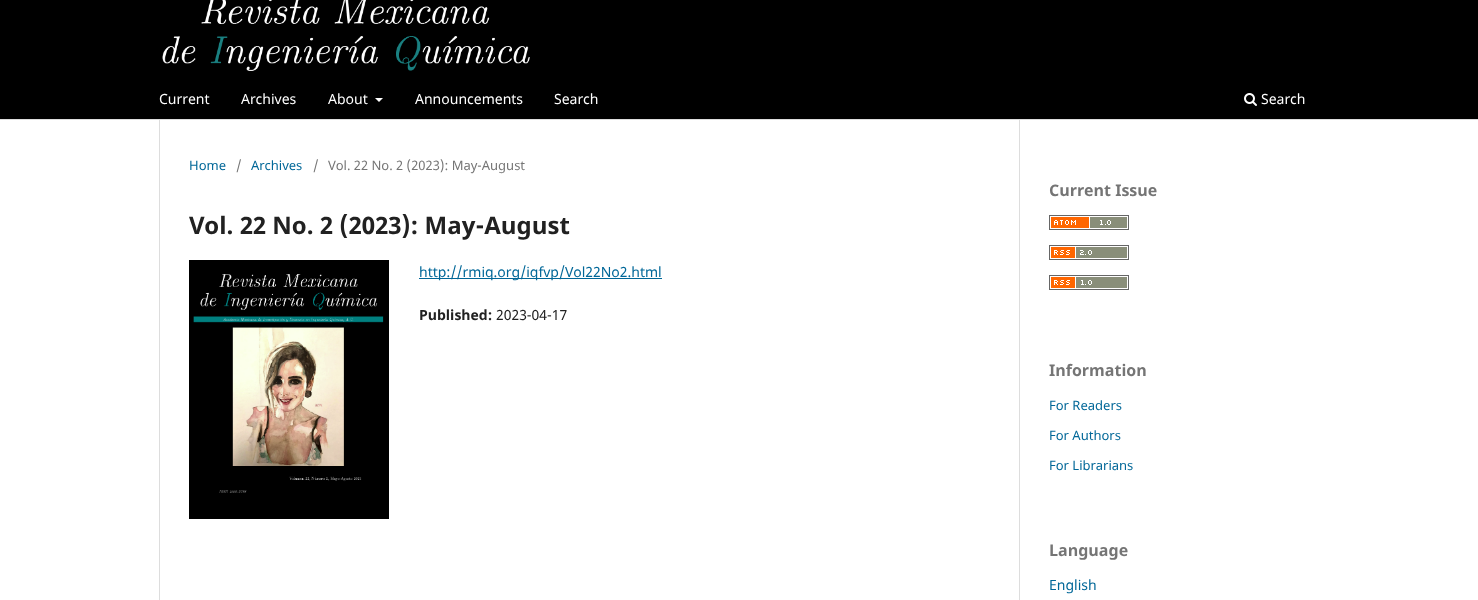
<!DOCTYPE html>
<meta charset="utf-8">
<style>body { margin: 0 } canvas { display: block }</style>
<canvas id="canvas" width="1478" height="600"></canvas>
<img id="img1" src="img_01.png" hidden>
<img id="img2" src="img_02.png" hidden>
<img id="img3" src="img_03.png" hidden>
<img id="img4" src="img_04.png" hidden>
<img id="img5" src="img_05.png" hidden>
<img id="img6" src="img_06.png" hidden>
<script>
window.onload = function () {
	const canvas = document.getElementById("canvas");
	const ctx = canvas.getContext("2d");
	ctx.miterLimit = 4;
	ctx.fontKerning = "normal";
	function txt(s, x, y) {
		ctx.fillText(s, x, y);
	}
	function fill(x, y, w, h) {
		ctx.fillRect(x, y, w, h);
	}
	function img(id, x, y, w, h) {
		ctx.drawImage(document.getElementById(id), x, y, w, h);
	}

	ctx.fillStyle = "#FFFFFF";
	fill(0, 0, 1478, 600);
	ctx.fillStyle = "#000000";
	fill(0, 0, 1478, 119);
	ctx.fillStyle = "#DDDDDD";
	fill(0, 119, 1478, 1);
	img("img1", 162, 0, 368, 71);
	ctx.fillStyle = "#FFFFFF";
	ctx.beginPath();
	ctx.moveTo(375, 98);
	ctx.lineTo(383, 98);
	ctx.lineTo(379, 102);
	ctx.closePath();
	ctx.fill();
	img("img2", 1244, 93, 13, 13);
	ctx.fillStyle = "#DDDDDD";
	fill(159, 120, 1, 480);
	img("img3", 189, 260, 200, 259);
	ctx.fillStyle = "#006798";
	fill(419, 278, 243, 1);
	ctx.fillStyle = "#DDDDDD";
	fill(1019, 120, 1, 480);
	img("img4", 1049, 215, 80, 15);
	img("img5", 1049, 245, 80, 15);
	img("img6", 1049, 275, 80, 15);
	ctx.font = "14px Noto Sans";
	ctx.fillStyle = "#FFFFFF";
	txt("Current", 159, 104);
	txt("Archives", 241, 104);
	txt("About", 328, 104);
	txt("Announcements", 415, 104);
	txt("Search", 554, 104);
	txt("Search", 1261, 104);
	ctx.font = "13px Noto Sans";
	ctx.fillStyle = "#006798";
	txt("Home", 189, 170);
	ctx.fillStyle = "#757575";
	txt("/", 236, 170);
	ctx.fillStyle = "#006798";
	txt("Archives", 251, 170);
	ctx.fillStyle = "#757575";
	txt("/", 313, 170);
	txt("Vol. 22 No. 2 (2023): May-August", 328, 170);
	ctx.font = "bold 24px Noto Sans";
	ctx.fillStyle = "#212121";
	txt("Vol. 22 No. 2 (2023): May-August", 189, 234);
	ctx.font = "14px Noto Sans";
	ctx.fillStyle = "#006798";
	txt("http://rmiq.org/iqfvp/Vol22No2.html", 419, 277);
	ctx.font = "bold 14px Noto Sans";
	ctx.fillStyle = "#212121";
	txt("Published:", 419, 320);
	ctx.font = "14px Noto Sans";
	txt("2023-04-17", 496, 320);
	ctx.font = "bold 16px Noto Sans";
	ctx.fillStyle = "#757575";
	txt("Current Issue", 1049, 196);
	txt("Information", 1049, 376);
	ctx.font = "13px Noto Sans";
	ctx.fillStyle = "#006798";
	txt("For Readers", 1049, 410);
	txt("For Authors", 1049, 440);
	txt("For Librarians", 1049, 470);
	ctx.font = "bold 16px Noto Sans";
	ctx.fillStyle = "#757575";
	txt("Language", 1049, 556);
	ctx.font = "14px Noto Sans";
	ctx.fillStyle = "#006798";
	txt("English", 1049, 590);
};
</script>
